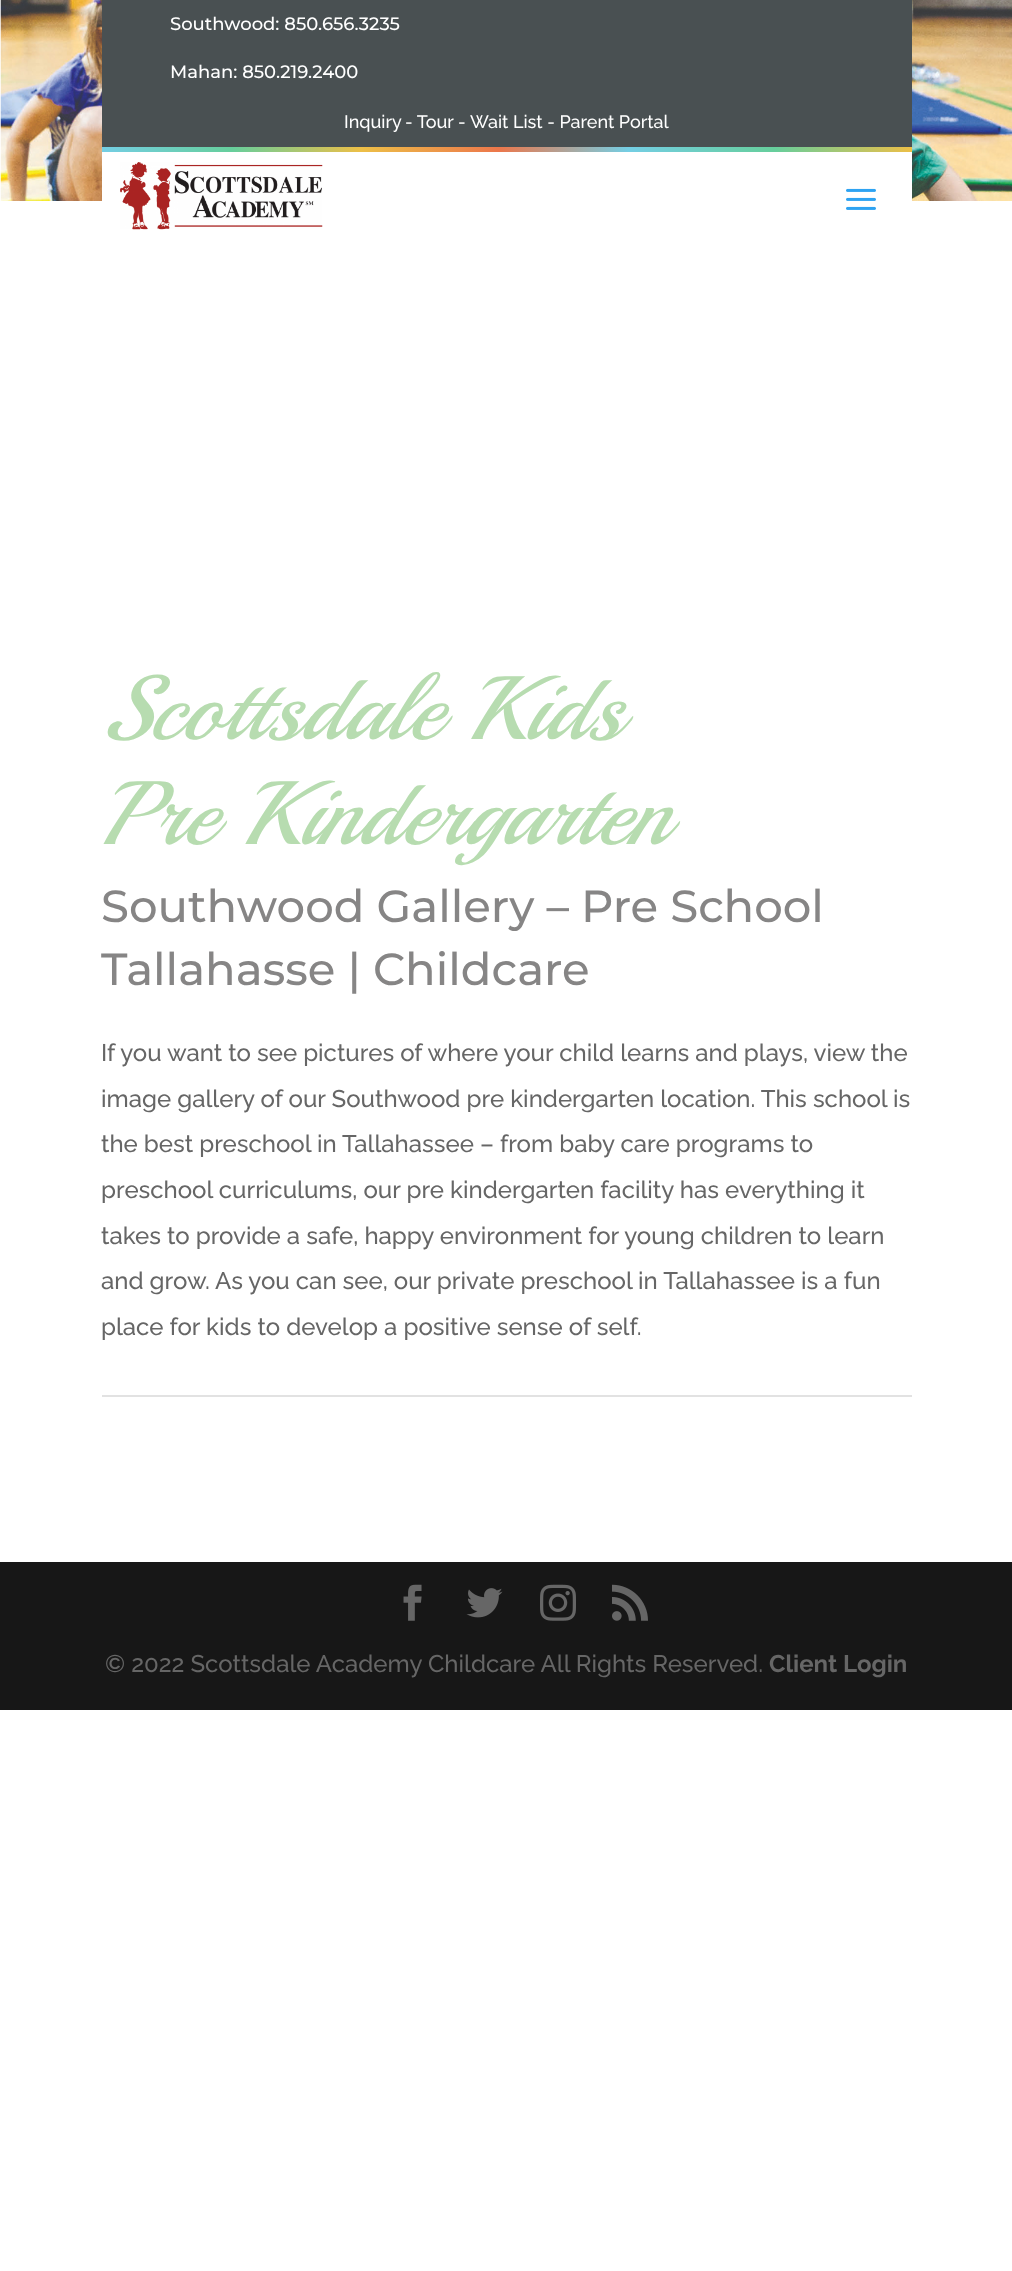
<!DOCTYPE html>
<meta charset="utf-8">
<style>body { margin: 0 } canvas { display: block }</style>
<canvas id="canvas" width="1012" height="2271"></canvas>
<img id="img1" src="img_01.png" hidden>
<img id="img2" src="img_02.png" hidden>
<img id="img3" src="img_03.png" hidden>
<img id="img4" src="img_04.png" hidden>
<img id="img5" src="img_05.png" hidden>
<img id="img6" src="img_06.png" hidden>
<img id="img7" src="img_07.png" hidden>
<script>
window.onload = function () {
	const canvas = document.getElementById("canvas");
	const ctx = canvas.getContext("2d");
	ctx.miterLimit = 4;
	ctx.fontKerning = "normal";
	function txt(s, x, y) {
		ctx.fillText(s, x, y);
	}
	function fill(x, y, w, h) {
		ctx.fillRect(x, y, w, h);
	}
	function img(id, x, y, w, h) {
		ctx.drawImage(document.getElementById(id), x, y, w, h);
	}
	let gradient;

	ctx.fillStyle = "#FFFFFF";
	fill(0, 0, 1012, 2271);
	img("img1", 0, 0, 1012, 201);
	ctx.fillStyle = "#495052";
	fill(102, 0, 810, 147);
	ctx.fillStyle = "#FFFFFF";
	ctx.beginPath();
	ctx.roundRect(102, 147, 810, 98, [0, 0, 8, 8]);
	ctx.fill();
	gradient = ctx.createLinearGradient(102, 149, 912, 149);
	gradient.addColorStop(0, "#74CEE4");
	gradient.addColorStop(0.16, "#66CE9C");
	gradient.addColorStop(0.32, "#EDBF47");
	gradient.addColorStop(0.49, "#EC774B");
	gradient.addColorStop(0.65, "#74CEE4");
	gradient.addColorStop(0.83, "#66CE9C");
	gradient.addColorStop(1, "#EDBF47");
	ctx.fillStyle = gradient;
	fill(102, 147, 810, 5);
	img("img2", 120, 162, 203, 68);
	img("img3", 846, 188, 30, 22);
	ctx.fillStyle = "#E2E2E2";
	fill(102, 1395, 810, 2);
	ctx.fillStyle = "#171717";
	fill(0, 1562, 1012, 148);
	img("img4", 403, 1584, 19, 37);
	img("img5", 466, 1588, 37, 30);
	img("img6", 540, 1584, 36, 37);
	img("img7", 612, 1584, 36, 37);
	ctx.font = "100 18px Montserrat";
	ctx.fillStyle = "#FFFFFF";
	txt("Southwood: 850.656.3235", 170, 30);
	txt("Mahan: 850.219.2400", 170, 78);
	ctx.font = "100 18px Raleway";
	txt("Inquiry", 344, 128);
	txt("- Tour", 405, 128);
	txt("-", 458, 128);
	txt("Wait List - Parent Portal", 470, 128);
	ctx.font = "italic 90px Playball";
	ctx.fillStyle = "#B7DCB0";
	txt("Scottsdale Kids", 101, 739);
	txt("Pre Kindergarten", 101, 844);
	ctx.font = "100 45px Montserrat";
	ctx.fillStyle = "#868585";
	txt("Southwood Gallery – Pre School", 101, 922);
	txt("Tallahasse | Childcare", 101, 985);
	ctx.font = "100 24px Raleway";
	ctx.fillStyle = "#666666";
	txt("If you want to see pictures of where your child learns and plays, view the", 101, 1061);
	txt("image gallery of our Southwood pre kindergarten location. This school is", 101, 1107);
	txt("the best preschool in Tallahassee – from baby care programs to", 101, 1152);
	txt("preschool curriculums, our pre kindergarten facility has everything it", 101, 1198);
	txt("takes to provide a safe, happy environment for young children to learn", 101, 1244);
	txt("and grow. As you can see, our private preschool in Tallahassee is a fun", 101, 1289);
	txt("place for kids to develop a positive sense of self.", 101, 1335);
	txt("© 2022 Scottsdale Academy Childcare All Rights Reserved.", 105, 1672);
	ctx.font = "100 24px 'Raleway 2'";
	txt("Client Login", 769, 1672);
};
</script>
